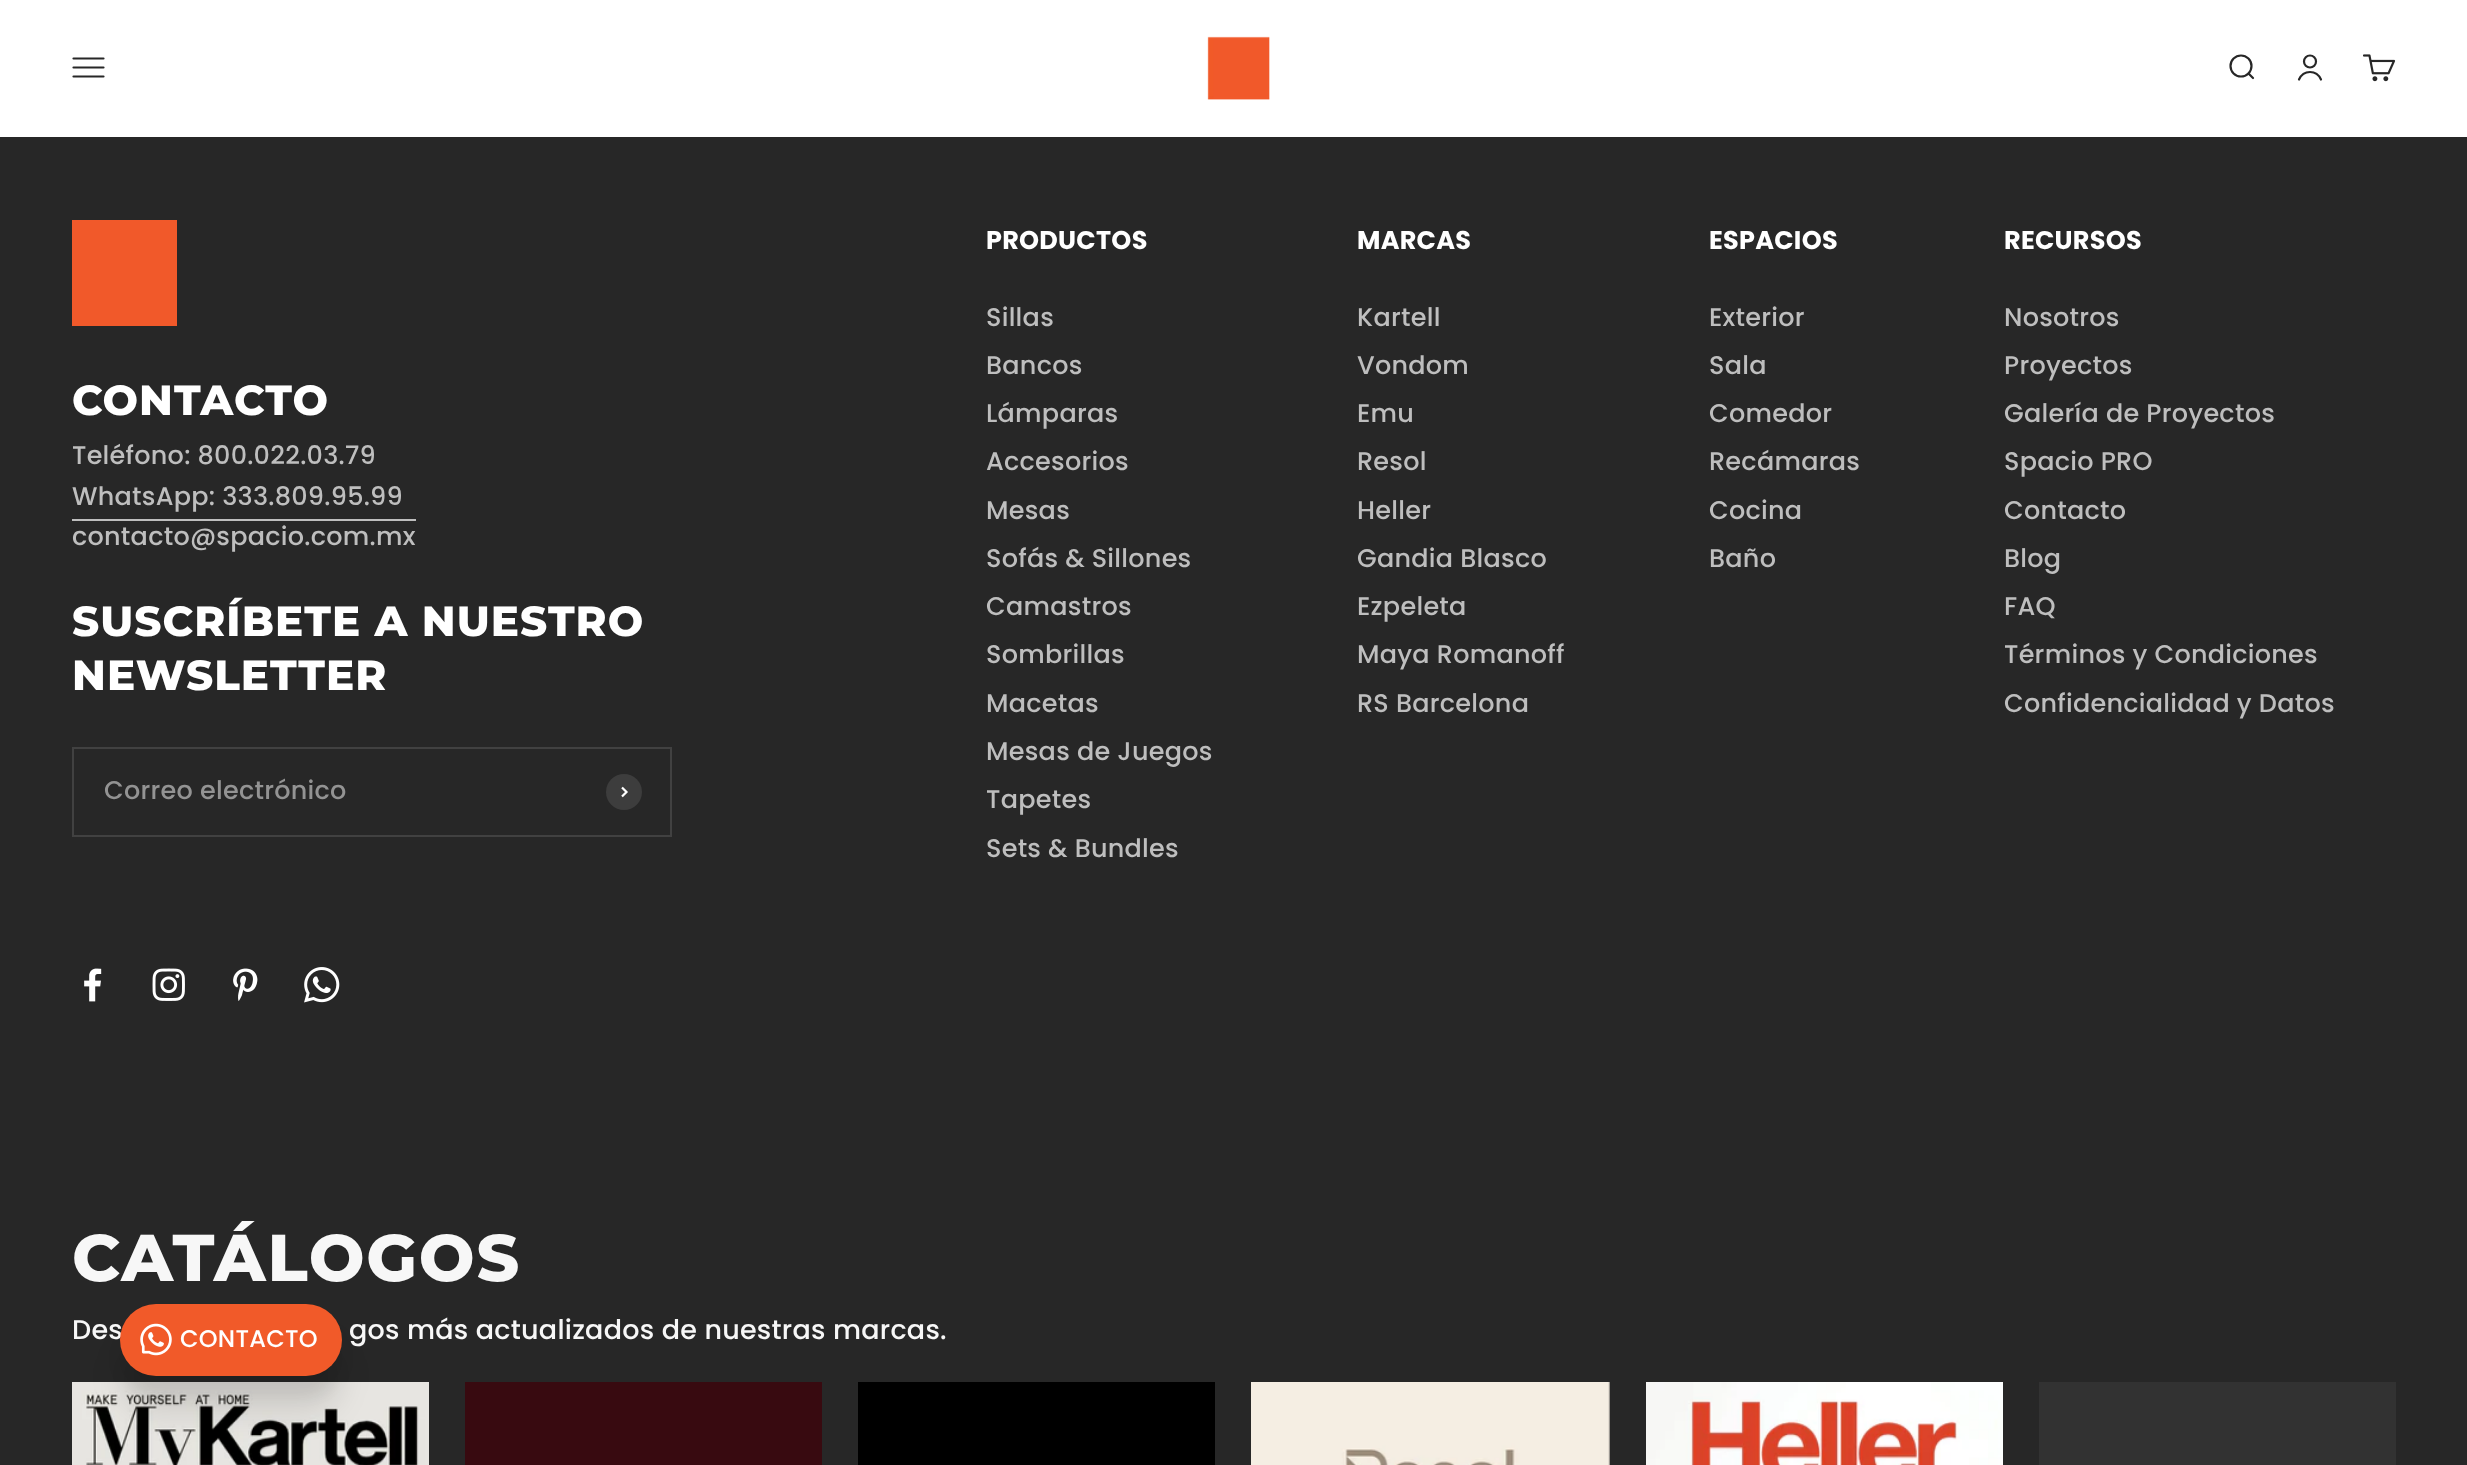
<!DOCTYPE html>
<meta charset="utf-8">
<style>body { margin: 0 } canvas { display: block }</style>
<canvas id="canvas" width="2467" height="1465"></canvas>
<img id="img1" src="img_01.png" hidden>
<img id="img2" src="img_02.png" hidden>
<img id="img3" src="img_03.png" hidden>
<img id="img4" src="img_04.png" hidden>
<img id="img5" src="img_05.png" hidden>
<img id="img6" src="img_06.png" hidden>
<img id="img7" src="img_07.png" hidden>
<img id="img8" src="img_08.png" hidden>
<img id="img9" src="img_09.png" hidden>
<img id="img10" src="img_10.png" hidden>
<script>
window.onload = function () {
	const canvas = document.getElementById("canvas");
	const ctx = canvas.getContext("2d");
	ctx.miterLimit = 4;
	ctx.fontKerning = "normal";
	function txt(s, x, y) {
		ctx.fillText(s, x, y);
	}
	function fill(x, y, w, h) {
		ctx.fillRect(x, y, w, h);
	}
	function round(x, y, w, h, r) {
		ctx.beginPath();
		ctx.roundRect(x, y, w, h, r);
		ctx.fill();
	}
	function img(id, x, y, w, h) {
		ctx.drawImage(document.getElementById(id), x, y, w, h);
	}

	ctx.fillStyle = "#272727";
	fill(0, 0, 2467, 1465);
	ctx.fillStyle = "#FFFFFF";
	fill(0, 0, 2467, 137);
	ctx.beginPath();
	ctx.moveTo(73.5, 58.5);
	ctx.lineTo(103.5, 58.5);
	ctx.moveTo(73.5, 67.5);
	ctx.lineTo(103.5, 67.5);
	ctx.moveTo(73.5, 76.5);
	ctx.lineTo(103.5, 76.5);
	ctx.strokeStyle = "#272727";
	ctx.lineWidth = 2.2;
	ctx.lineCap = "round";
	ctx.stroke();
	img("img1", 1207, 36, 63, 64);
	ctx.beginPath();
	ctx.arc(2241, 66, 10.5, 0, Math.PI * 2);
	ctx.stroke();
	ctx.beginPath();
	ctx.moveTo(2248.5, 73.5);
	ctx.lineTo(2253, 78);
	ctx.lineJoin = "round";
	ctx.stroke();
	ctx.beginPath();
	ctx.arc(2310, 61.5, 6, 0, Math.PI * 2);
	ctx.stroke();
	ctx.beginPath();
	ctx.moveTo(2299, 79.5);
	ctx.bezierCurveTo(2303.5, 69.5, 2316.5, 69.5, 2321, 79.5);
	ctx.lineJoin = "miter";
	ctx.stroke();
	img("img2", 2363, 54, 33, 28);
	ctx.fillStyle = "#F1592A";
	fill(72, 220, 105, 106);
	ctx.fillStyle = "#BEBEBE";
	fill(72, 519, 344, 2);
	ctx.strokeStyle = "#414141";
	ctx.lineWidth = 2;
	ctx.strokeRect(73, 748, 598, 88);
	ctx.fillStyle = "#3D3D3D";
	ctx.beginPath();
	ctx.arc(624, 792, 18, 0, Math.PI * 2);
	ctx.fill();
	ctx.beginPath();
	ctx.moveTo(622, 796.5);
	ctx.lineTo(626.5, 792);
	ctx.lineTo(622, 787.5);
	ctx.strokeStyle = "#FFFFFF";
	ctx.lineWidth = 2.2;
	ctx.lineCap = "butt";
	ctx.stroke();
	img("img3", 84, 968, 18, 34);
	img("img4", 152, 968, 33, 33);
	img("img5", 233, 968, 25, 33);
	img("img6", 304, 967, 36, 36);
	img("img7", 72, 1382, 357, 83);
	ctx.fillStyle = "#380A10";
	fill(465, 1382, 357, 83);
	ctx.fillStyle = "#000000";
	fill(858, 1382, 357, 83);
	ctx.fillStyle = "#323232";
	fill(1608, 1382, 2, 83);
	img("img8", 1251, 1382, 359, 83);
	img("img9", 1646, 1382, 357, 83);
	fill(2039, 1382, 357, 83);
	ctx.fillStyle = "rgba(0, 0, 0, 0.1)";
	ctx.filter = "blur(15px)";
	ctx.beginPath();
	ctx.roundRect(120, 1341, 222, 72, 36);
	ctx.fill();
	ctx.filter = "none";
	ctx.fillStyle = "rgba(0, 0, 0, 0.06)";
	ctx.filter = "blur(7px)";
	ctx.beginPath();
	ctx.roundRect(120, 1323, 222, 72, 36);
	ctx.fill();
	ctx.filter = "none";
	ctx.letterSpacing = "1.05px";
	ctx.font = "800 42px Montserrat";
	ctx.fillStyle = "#FFFFFF";
	txt("CONTACTO", 72, 415);
	ctx.letterSpacing = "0.25px";
	ctx.font = "500 25.5px Poppins";
	ctx.fillStyle = "#BEBEBE";
	txt("Teléfono: 800.022.03.79", 72, 464);
	txt("WhatsApp: 333.809.95.99", 72, 505);
	txt("contacto@spacio.com.mx", 72, 545);
	ctx.letterSpacing = "1.05px";
	ctx.font = "800 42px Montserrat";
	ctx.fillStyle = "#FFFFFF";
	txt("SUSCRÍBETE A NUESTRO", 72, 636);
	txt("NEWSLETTER", 72, 690);
	ctx.letterSpacing = "0.25px";
	ctx.font = "500 25.5px Poppins";
	ctx.fillStyle = "#939393";
	txt("Correo electrónico", 104, 799);
	ctx.font = "bold 25.5px Poppins";
	ctx.fillStyle = "#FFFFFF";
	txt("PRODUCTOS", 986, 249);
	ctx.font = "500 25.5px Poppins";
	ctx.fillStyle = "#BEBEBE";
	txt("Sillas", 986, 326);
	txt("Bancos", 986, 374);
	txt("Lámparas", 986, 422);
	txt("Accesorios", 986, 470);
	txt("Mesas", 986, 519);
	txt("Sofás & Sillones", 986, 567);
	txt("Camastros", 986, 615);
	txt("Sombrillas", 986, 663);
	txt("Macetas", 986, 712);
	txt("Mesas de Juegos", 986, 760);
	txt("Tapetes", 986, 808);
	txt("Sets & Bundles", 986, 857);
	ctx.font = "bold 25.5px Poppins";
	ctx.fillStyle = "#FFFFFF";
	txt("MARCAS", 1357, 249);
	ctx.font = "500 25.5px Poppins";
	ctx.fillStyle = "#BEBEBE";
	txt("Kartell", 1357, 326);
	txt("Vondom", 1357, 374);
	txt("Emu", 1357, 422);
	txt("Resol", 1357, 470);
	txt("Heller", 1357, 519);
	txt("Gandia Blasco", 1357, 567);
	txt("Ezpeleta", 1357, 615);
	txt("Maya Romanoff", 1357, 663);
	txt("RS Barcelona", 1357, 712);
	ctx.font = "bold 25.5px Poppins";
	ctx.fillStyle = "#FFFFFF";
	txt("ESPACIOS", 1709, 249);
	ctx.font = "500 25.5px Poppins";
	ctx.fillStyle = "#BEBEBE";
	txt("Exterior", 1709, 326);
	txt("Sala", 1709, 374);
	txt("Comedor", 1709, 422);
	txt("Recámaras", 1709, 470);
	txt("Cocina", 1709, 519);
	txt("Baño", 1709, 567);
	ctx.font = "bold 25.5px Poppins";
	ctx.fillStyle = "#FFFFFF";
	txt("RECURSOS", 2004, 249);
	ctx.font = "500 25.5px Poppins";
	ctx.fillStyle = "#BEBEBE";
	txt("Nosotros", 2004, 326);
	txt("Proyectos", 2004, 374);
	txt("Galería de Proyectos", 2004, 422);
	txt("Spacio PRO", 2004, 470);
	txt("Contacto", 2004, 519);
	txt("Blog", 2004, 567);
	txt("FAQ", 2004, 615);
	txt("Términos y Condiciones", 2004, 663);
	txt("Confidencialidad y Datos", 2004, 712);
	ctx.letterSpacing = "1.75px";
	ctx.font = "800 66px Montserrat";
	ctx.fillStyle = "#F7F7F7";
	txt("CATÁLOGOS", 72, 1281);
	ctx.letterSpacing = "0.25px";
	ctx.font = "500 27px Poppins";
	txt("Des", 72, 1339);
	txt("gos más actualizados de nuestras marcas.", 349, 1339);
	ctx.fillStyle = "#F15A29";
	round(120, 1304, 222, 72, 36);
	img("img10", 140, 1323, 32, 33);
	ctx.font = "500 24px Poppins";
	ctx.fillStyle = "#FFFFFF";
	txt("CONTACTO", 180, 1347);
};
</script>
